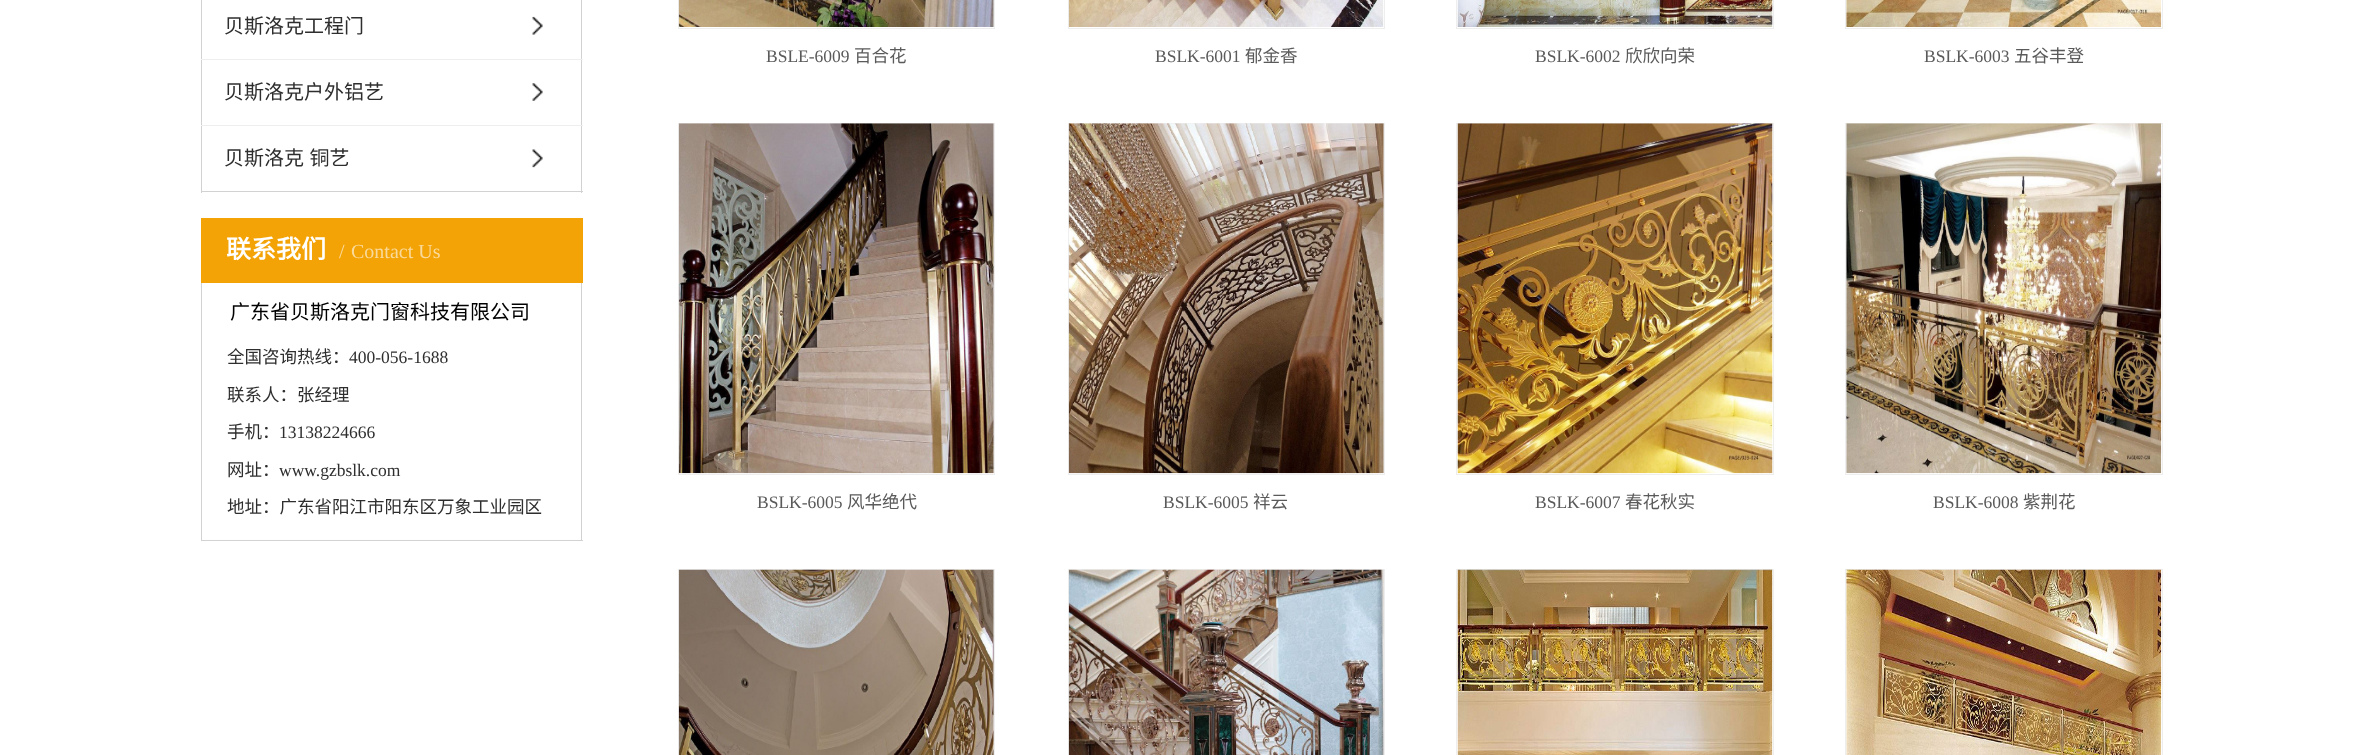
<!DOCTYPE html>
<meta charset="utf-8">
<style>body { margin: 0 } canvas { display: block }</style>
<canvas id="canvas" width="2377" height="755"></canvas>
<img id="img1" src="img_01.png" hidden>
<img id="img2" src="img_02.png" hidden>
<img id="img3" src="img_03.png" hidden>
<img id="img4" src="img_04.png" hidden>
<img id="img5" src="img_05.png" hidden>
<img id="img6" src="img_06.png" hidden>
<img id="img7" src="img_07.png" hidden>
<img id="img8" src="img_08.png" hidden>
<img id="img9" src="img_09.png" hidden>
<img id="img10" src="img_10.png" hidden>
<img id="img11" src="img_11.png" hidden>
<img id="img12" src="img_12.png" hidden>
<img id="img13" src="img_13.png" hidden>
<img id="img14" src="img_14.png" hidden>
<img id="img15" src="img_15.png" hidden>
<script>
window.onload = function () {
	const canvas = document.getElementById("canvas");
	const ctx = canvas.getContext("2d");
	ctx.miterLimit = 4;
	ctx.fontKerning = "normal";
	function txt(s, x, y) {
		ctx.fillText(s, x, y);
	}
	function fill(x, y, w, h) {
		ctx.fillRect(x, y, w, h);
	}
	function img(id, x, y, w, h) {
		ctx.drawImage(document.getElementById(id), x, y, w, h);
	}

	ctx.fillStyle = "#FFFFFF";
	fill(0, 0, 2377, 755);
	ctx.fillStyle = "#D2D2D2";
	fill(581, 0, 1, 193);
	fill(201, 191, 382, 1);
	fill(201, 0, 1, 193);
	ctx.fillStyle = "#EEEEEE";
	fill(201, 59, 382, 1);
	img("img1", 532, 16, 11, 19);
	fill(201, 125, 382, 1);
	img("img2", 532, 83, 11, 18);
	img("img3", 532, 149, 11, 19);
	ctx.fillStyle = "#F3A306";
	fill(201, 218, 382, 65);
	ctx.fillStyle = "#D2D2D2";
	fill(581, 283, 1, 258);
	fill(201, 540, 382, 1);
	fill(201, 283, 1, 258);
	ctx.strokeStyle = "#EEEEEE";
	ctx.strokeRect(678.5, -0.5, 316, 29);
	img("img4", 678, 0, 316, 27);
	ctx.strokeRect(1068.5, -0.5, 316, 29);
	img("img5", 1068, 0, 316, 27);
	ctx.strokeRect(1456.5, -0.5, 317, 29);
	img("img6", 1457, 0, 316, 27);
	ctx.strokeRect(1845.5, -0.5, 317, 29);
	img("img7", 1846, 0, 316, 27);
	ctx.strokeRect(678.5, 123.5, 316, 351);
	img("img8", 678, 123, 316, 351);
	ctx.strokeRect(1068.5, 123.5, 316, 351);
	img("img9", 1068, 123, 316, 351);
	ctx.strokeRect(1456.5, 123.5, 317, 351);
	img("img10", 1457, 123, 316, 351);
	ctx.strokeRect(1845.5, 123.5, 317, 351);
	img("img11", 1846, 123, 316, 351);
	ctx.strokeRect(678.5, 569.5, 316, 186);
	img("img12", 678, 569, 316, 186);
	ctx.strokeRect(1068.5, 569.5, 316, 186);
	img("img13", 1068, 569, 316, 186);
	ctx.strokeRect(1456.5, 569.5, 317, 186);
	img("img14", 1457, 569, 316, 186);
	ctx.strokeRect(1845.5, 569.5, 317, 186);
	img("img15", 1846, 569, 316, 186);
	ctx.font = "20px Noto Sans CJK SC";
	ctx.fillStyle = "#2E2E2E";
	txt("贝斯洛克工程门", 224, 33);
	txt("贝斯洛克户外铝艺", 224, 99);
	ctx.wordSpacing = "1px";
	txt("贝斯洛克 铜艺", 224, 165);
	ctx.wordSpacing = "0px";
	ctx.font = "bold 25px Noto Sans CJK SC";
	ctx.fillStyle = "#FFFFFF";
	txt("联系我们", 226, 258);
	ctx.font = "20px Liberation Serif";
	ctx.fillStyle = "#FADA9B";
	txt("/", 339, 258);
	txt("Contact Us", 351, 258);
	ctx.font = "20px Noto Sans CJK SC";
	ctx.fillStyle = "#000000";
	txt("广东省贝斯洛克门窗科技有限公司", 230, 319);
	ctx.font = "17.5px Noto Sans CJK SC";
	ctx.fillStyle = "#2E2E2E";
	txt("全国咨询热线：", 227, 363);
	ctx.font = "17.5px Liberation Serif";
	txt("400-056-1688", 349, 363);
	ctx.font = "17.5px Noto Sans CJK SC";
	txt("联系人：张经理", 227, 401);
	txt("手机：", 227, 438);
	ctx.font = "17.5px Liberation Serif";
	txt("13138224666", 279, 438);
	ctx.font = "17.5px Noto Sans CJK SC";
	txt("网址：", 227, 476);
	ctx.font = "17.5px Liberation Serif";
	txt("www.gzbslk.com", 279, 476);
	ctx.font = "17.5px Noto Sans CJK SC";
	txt("地址：广东省阳江市阳东区万象工业园区", 227, 513);
	ctx.font = "17.5px Liberation Serif";
	ctx.fillStyle = "#5A5A5A";
	txt("BSLE-6009", 766, 62);
	ctx.font = "17.5px Noto Sans CJK SC";
	txt("百合花", 854, 62);
	ctx.font = "17.5px Liberation Serif";
	txt("BSLK-6001", 1155, 62);
	ctx.font = "17.5px Noto Sans CJK SC";
	txt("郁金香", 1245, 62);
	ctx.font = "17.5px Liberation Serif";
	txt("BSLK-6002", 1535, 62);
	ctx.font = "17.5px Noto Sans CJK SC";
	txt("欣欣向荣", 1625, 62);
	ctx.font = "17.5px Liberation Serif";
	txt("BSLK-6003", 1924, 62);
	ctx.font = "17.5px Noto Sans CJK SC";
	txt("五谷丰登", 2014, 62);
	ctx.font = "17.5px Liberation Serif";
	txt("BSLK-6005", 757, 508);
	ctx.font = "17.5px Noto Sans CJK SC";
	txt("风华绝代", 847, 508);
	ctx.font = "17.5px Liberation Serif";
	txt("BSLK-6005", 1163, 508);
	ctx.font = "17.5px Noto Sans CJK SC";
	txt("祥云", 1253, 508);
	ctx.font = "17.5px Liberation Serif";
	txt("BSLK-6007", 1535, 508);
	ctx.font = "17.5px Noto Sans CJK SC";
	txt("春花秋实", 1625, 508);
	ctx.font = "17.5px Liberation Serif";
	txt("BSLK-6008", 1933, 508);
	ctx.font = "17.5px Noto Sans CJK SC";
	txt("紫荆花", 2023, 508);
};
</script>
